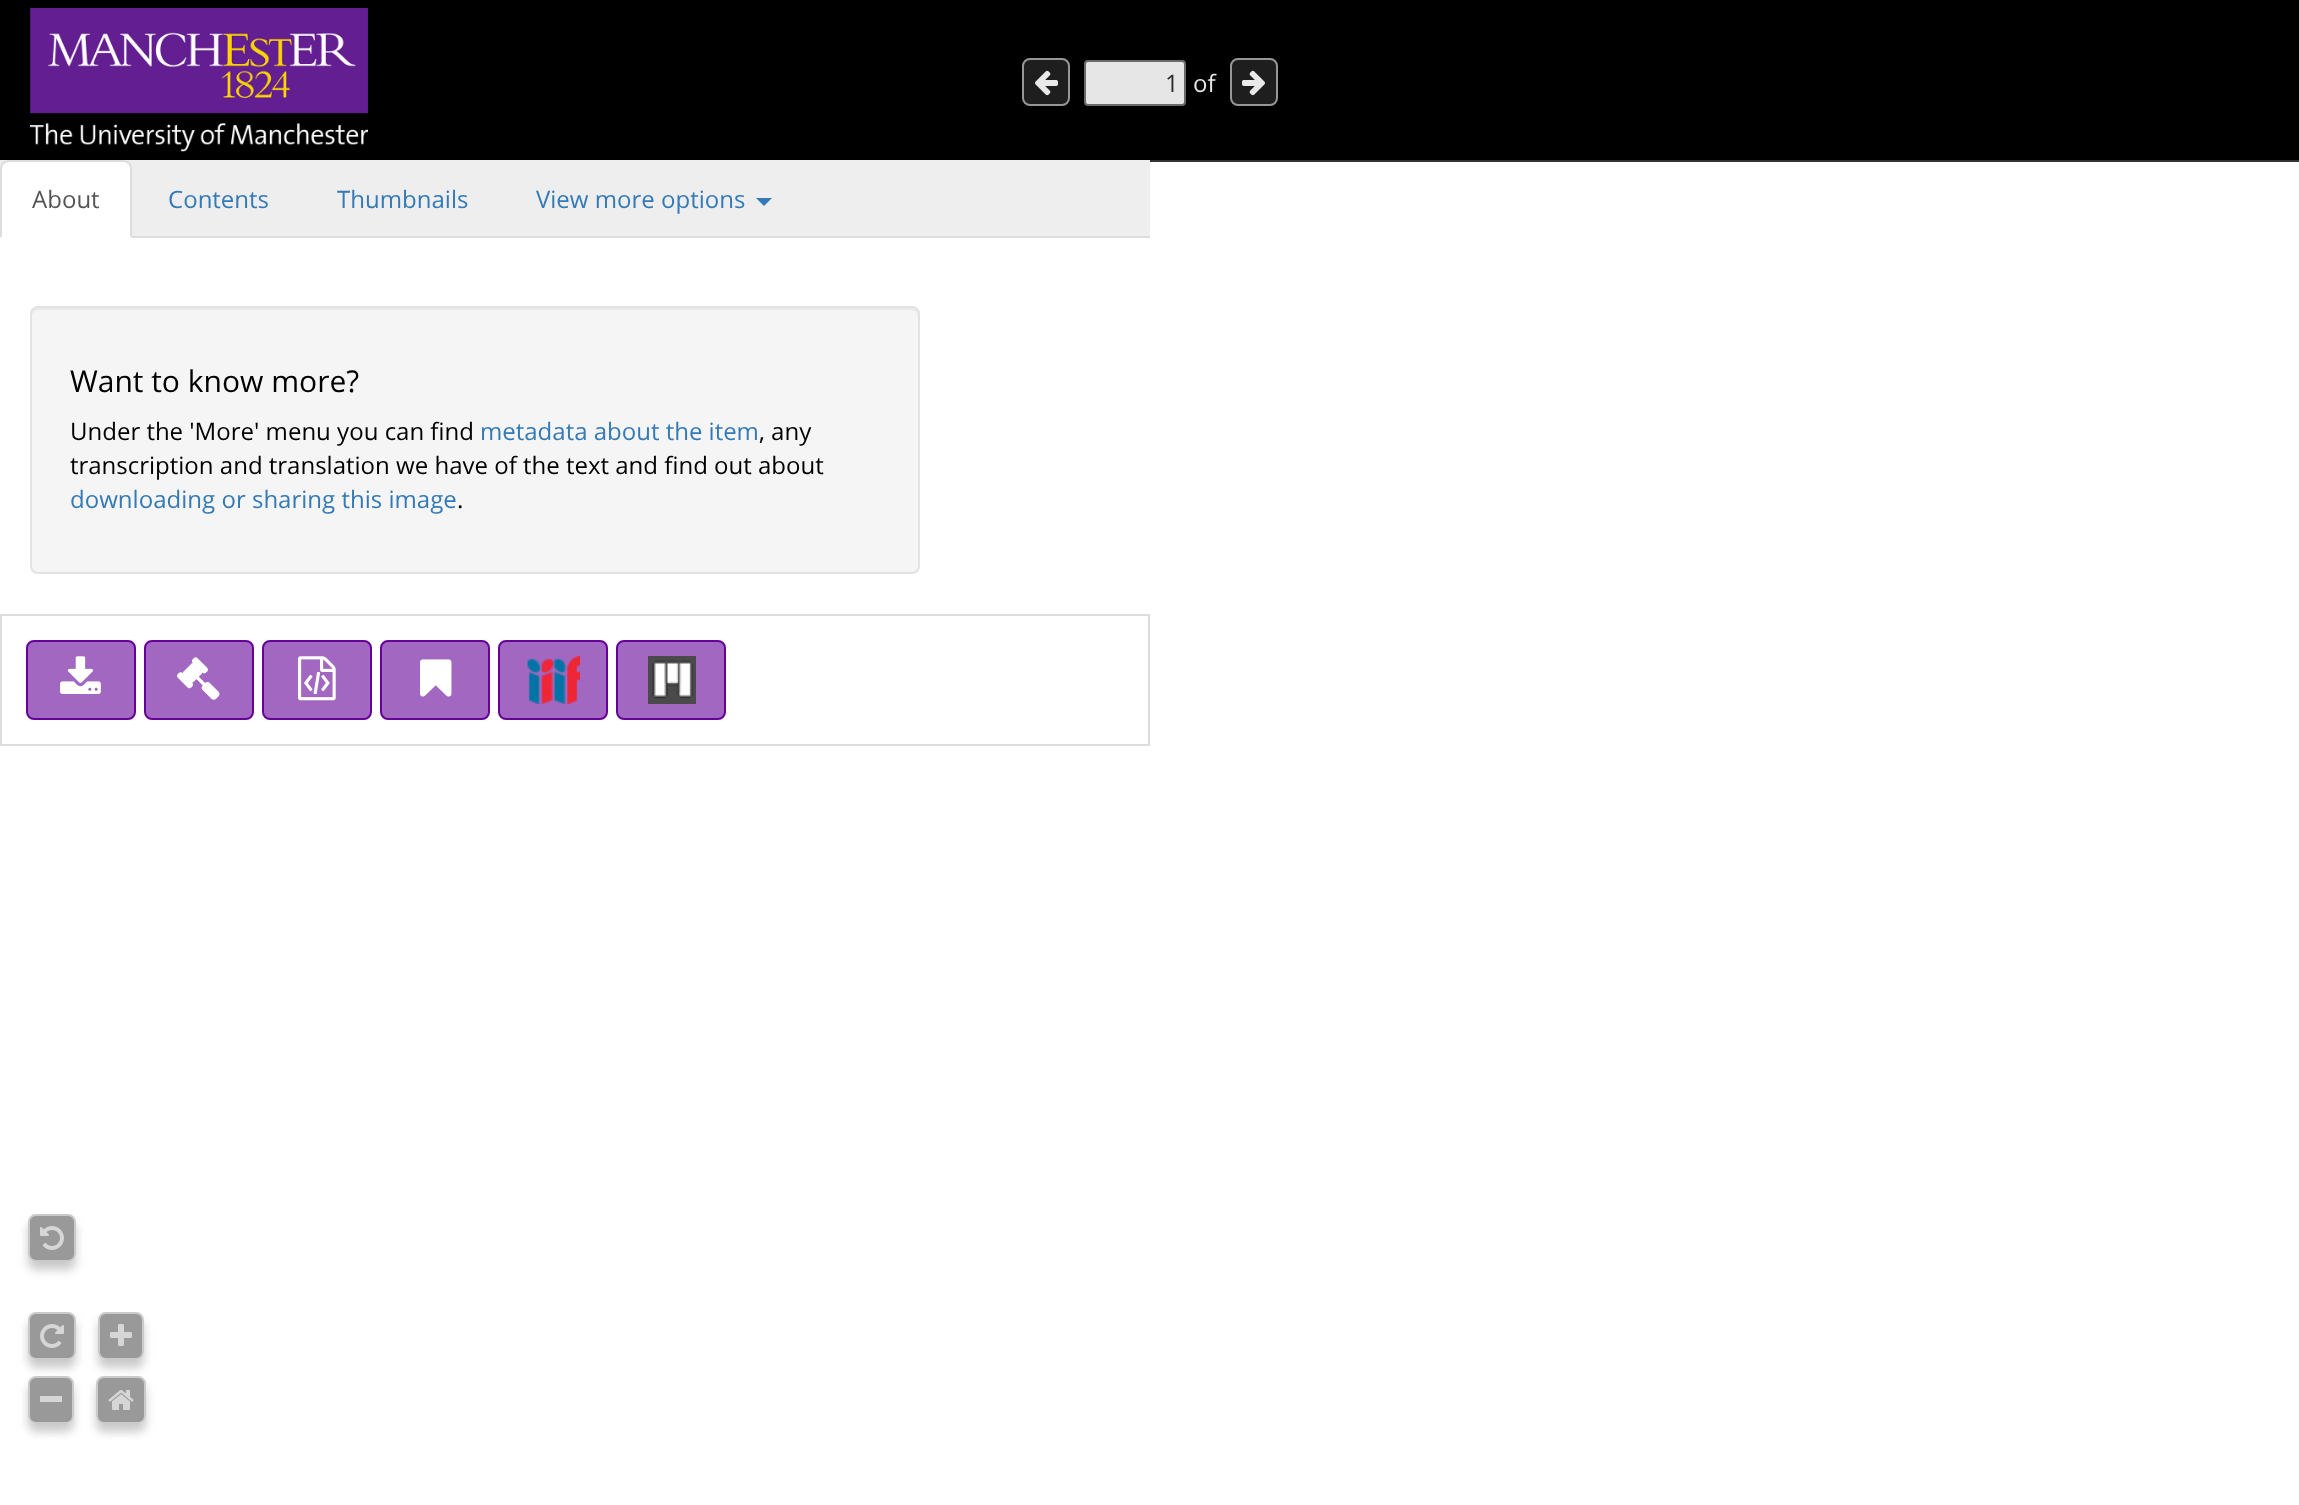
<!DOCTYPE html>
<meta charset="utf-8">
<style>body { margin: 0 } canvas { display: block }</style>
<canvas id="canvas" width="2299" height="1505"></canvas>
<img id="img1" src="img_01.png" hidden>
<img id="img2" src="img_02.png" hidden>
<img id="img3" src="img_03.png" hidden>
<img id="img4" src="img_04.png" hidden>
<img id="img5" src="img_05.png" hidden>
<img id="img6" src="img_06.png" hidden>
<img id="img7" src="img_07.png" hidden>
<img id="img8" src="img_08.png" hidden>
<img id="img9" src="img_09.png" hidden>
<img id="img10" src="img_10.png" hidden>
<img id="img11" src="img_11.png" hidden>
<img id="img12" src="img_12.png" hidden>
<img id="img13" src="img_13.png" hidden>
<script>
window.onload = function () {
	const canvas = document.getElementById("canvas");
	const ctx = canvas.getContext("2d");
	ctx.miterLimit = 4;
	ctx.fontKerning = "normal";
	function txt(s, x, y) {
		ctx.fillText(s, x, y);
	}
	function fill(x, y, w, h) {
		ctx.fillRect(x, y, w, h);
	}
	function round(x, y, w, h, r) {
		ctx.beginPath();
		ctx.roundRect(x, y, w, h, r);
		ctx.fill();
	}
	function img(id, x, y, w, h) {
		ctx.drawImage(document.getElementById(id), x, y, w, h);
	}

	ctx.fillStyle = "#FFFFFF";
	fill(0, 0, 2299, 1505);
	ctx.fillStyle = "#000000";
	fill(0, 0, 2299, 160);
	ctx.fillStyle = "#333333";
	fill(1150, 160, 1149, 2);
	img("img1", 30, 8, 338, 144);
	ctx.fillStyle = "#1E1E1E";
	ctx.beginPath();
	ctx.roundRect(1023, 59, 46, 46, 7);
	ctx.fill();
	ctx.strokeStyle = "#969696";
	ctx.lineWidth = 2;
	ctx.stroke();
	img("img2", 1035, 70, 23, 26);
	ctx.fillStyle = "#E6E6E6";
	ctx.beginPath();
	ctx.roundRect(1085, 61, 100, 44, 3);
	ctx.fill();
	ctx.strokeStyle = "#6A6A6A";
	ctx.stroke();
	ctx.fillStyle = "#1E1E1E";
	ctx.beginPath();
	ctx.roundRect(1231, 59, 46, 46, 7);
	ctx.fill();
	ctx.strokeStyle = "#969696";
	ctx.stroke();
	img("img3", 1242, 70, 23, 26);
	ctx.fillStyle = "#EEEEEE";
	fill(0, 160, 1150, 76);
	ctx.fillStyle = "#DDDDDD";
	fill(132, 236, 1018, 2);
	ctx.fillStyle = "#FFFFFF";
	ctx.beginPath();
	ctx.roundRect(0, 160, 132, 78, [8, 8, 0, 0]);
	ctx.fill();
	ctx.fillStyle = "#DDDDDD";
	ctx.beginPath();
	ctx.moveTo(8, 160);
	ctx.bezierCurveTo(6, 160, 4, 161, 2, 162);
	ctx.lineTo(4, 164);
	ctx.lineTo(7, 162);
	ctx.lineTo(125, 162);
	ctx.lineTo(128, 164);
	ctx.lineTo(130, 162);
	ctx.bezierCurveTo(128, 161, 126, 160, 124, 160);
	ctx.closePath();
	ctx.fill();
	ctx.beginPath();
	ctx.moveTo(132, 238);
	ctx.lineTo(132, 168);
	ctx.bezierCurveTo(132, 166, 131, 164, 130, 162);
	ctx.lineTo(128, 164);
	ctx.bezierCurveTo(129, 165, 130, 166, 130, 168);
	ctx.lineTo(130, 236);
	ctx.closePath();
	ctx.fill();
	ctx.beginPath();
	ctx.moveTo(0, 238);
	ctx.lineTo(2, 236);
	ctx.lineTo(2, 168);
	ctx.bezierCurveTo(2, 166, 3, 165, 4, 164);
	ctx.lineTo(2, 162);
	ctx.bezierCurveTo(1, 164, 0, 166, 0, 168);
	ctx.closePath();
	ctx.fill();
	ctx.fillStyle = "#337AB7";
	ctx.beginPath();
	ctx.moveTo(756, 198);
	ctx.lineTo(772, 198);
	ctx.lineTo(764, 206);
	ctx.closePath();
	ctx.fill();
	ctx.fillStyle = "#F5F5F5";
	round(30, 306, 890, 268, 8);
	ctx.fillStyle = "#E9E9E9";
	ctx.beginPath();
	ctx.moveTo(38, 310);
	ctx.lineTo(912, 310);
	ctx.bezierCurveTo(915, 310, 918, 313, 918, 316);
	ctx.lineTo(918, 314);
	ctx.bezierCurveTo(918, 311, 915, 308, 912, 308);
	ctx.lineTo(38, 308);
	ctx.bezierCurveTo(35, 308, 32, 311, 32, 314);
	ctx.lineTo(32, 316);
	ctx.bezierCurveTo(32, 313, 35, 310, 38, 310);
	ctx.closePath();
	ctx.fill();
	ctx.beginPath();
	ctx.roundRect(31, 307, 888, 266, 7);
	ctx.strokeStyle = "#E3E3E3";
	ctx.stroke();
	ctx.strokeStyle = "#DDDDDD";
	ctx.strokeRect(1, 615, 1148, 130);
	ctx.fillStyle = "#A268C1";
	ctx.beginPath();
	ctx.roundRect(27, 641, 108, 78, 7);
	ctx.fill();
	ctx.strokeStyle = "#660099";
	ctx.stroke();
	img("img4", 60, 656, 41, 38);
	ctx.beginPath();
	ctx.roundRect(145, 641, 108, 78, 7);
	ctx.fill();
	ctx.stroke();
	img("img5", 177, 657, 43, 43);
	ctx.beginPath();
	ctx.roundRect(263, 641, 108, 78, 7);
	ctx.fill();
	ctx.stroke();
	img("img6", 298, 656, 38, 45);
	ctx.beginPath();
	ctx.roundRect(381, 641, 108, 78, 7);
	ctx.fill();
	ctx.stroke();
	img("img7", 420, 659, 32, 38);
	ctx.beginPath();
	ctx.roundRect(499, 641, 108, 78, 7);
	ctx.fill();
	ctx.stroke();
	img("img8", 527, 656, 53, 48);
	ctx.beginPath();
	ctx.roundRect(617, 641, 108, 78, 7);
	ctx.fill();
	ctx.stroke();
	img("img9", 648, 656, 48, 48);
	ctx.save();
	ctx.beginPath();
	ctx.moveTo(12, 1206);
	ctx.lineTo(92, 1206);
	ctx.lineTo(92, 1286);
	ctx.lineTo(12, 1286);
	ctx.closePath();
	ctx.moveTo(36, 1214);
	ctx.lineTo(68, 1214);
	ctx.bezierCurveTo(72.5, 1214, 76, 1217.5, 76, 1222);
	ctx.lineTo(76, 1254);
	ctx.bezierCurveTo(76, 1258.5, 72.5, 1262, 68, 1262);
	ctx.lineTo(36, 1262);
	ctx.bezierCurveTo(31.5, 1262, 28, 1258.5, 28, 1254);
	ctx.lineTo(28, 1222);
	ctx.bezierCurveTo(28, 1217.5, 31.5, 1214, 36, 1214);
	ctx.closePath();
	ctx.clip("evenodd");
	ctx.fillStyle = "rgba(102, 102, 102, 0.35)";
	ctx.filter = "blur(5px)";
	ctx.beginPath();
	ctx.roundRect(28, 1222, 48, 48, 8);
	ctx.fill();
	ctx.filter = "none";
	ctx.restore();
	ctx.fillStyle = "rgba(127, 127, 127, 0.8)";
	ctx.beginPath();
	ctx.roundRect(29, 1215, 46, 46, 7);
	ctx.fill();
	ctx.strokeStyle = "#CACACA";
	ctx.stroke();
	img("img10", 40, 1226, 24, 24);
	ctx.save();
	ctx.beginPath();
	ctx.moveTo(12, 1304);
	ctx.lineTo(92, 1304);
	ctx.lineTo(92, 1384);
	ctx.lineTo(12, 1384);
	ctx.closePath();
	ctx.moveTo(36, 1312);
	ctx.lineTo(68, 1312);
	ctx.bezierCurveTo(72.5, 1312, 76, 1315.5, 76, 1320);
	ctx.lineTo(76, 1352);
	ctx.bezierCurveTo(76, 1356.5, 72.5, 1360, 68, 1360);
	ctx.lineTo(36, 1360);
	ctx.bezierCurveTo(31.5, 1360, 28, 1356.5, 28, 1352);
	ctx.lineTo(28, 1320);
	ctx.bezierCurveTo(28, 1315.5, 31.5, 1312, 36, 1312);
	ctx.closePath();
	ctx.clip("evenodd");
	ctx.fillStyle = "rgba(102, 102, 102, 0.35)";
	ctx.filter = "blur(5px)";
	ctx.beginPath();
	ctx.roundRect(28, 1320, 48, 48, 8);
	ctx.fill();
	ctx.filter = "none";
	ctx.restore();
	ctx.beginPath();
	ctx.roundRect(29, 1313, 46, 46, 7);
	ctx.fill();
	ctx.stroke();
	img("img11", 40, 1324, 24, 24);
	ctx.save();
	ctx.beginPath();
	ctx.moveTo(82, 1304);
	ctx.lineTo(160, 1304);
	ctx.lineTo(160, 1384);
	ctx.lineTo(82, 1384);
	ctx.closePath();
	ctx.moveTo(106, 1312);
	ctx.lineTo(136, 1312);
	ctx.bezierCurveTo(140.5, 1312, 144, 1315.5, 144, 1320);
	ctx.lineTo(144, 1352);
	ctx.bezierCurveTo(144, 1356.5, 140.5, 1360, 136, 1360);
	ctx.lineTo(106, 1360);
	ctx.bezierCurveTo(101.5, 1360, 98, 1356.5, 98, 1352);
	ctx.lineTo(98, 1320);
	ctx.bezierCurveTo(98, 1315.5, 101.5, 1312, 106, 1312);
	ctx.closePath();
	ctx.clip("evenodd");
	ctx.fillStyle = "rgba(102, 102, 102, 0.35)";
	ctx.filter = "blur(5px)";
	ctx.beginPath();
	ctx.roundRect(98, 1320, 46, 48, 8);
	ctx.fill();
	ctx.filter = "none";
	ctx.restore();
	ctx.beginPath();
	ctx.roundRect(99, 1313, 44, 46, 7);
	ctx.fill();
	ctx.stroke();
	img("img12", 110, 1324, 22, 22);
	ctx.save();
	ctx.beginPath();
	ctx.moveTo(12, 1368);
	ctx.lineTo(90, 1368);
	ctx.lineTo(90, 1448);
	ctx.lineTo(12, 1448);
	ctx.closePath();
	ctx.moveTo(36, 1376);
	ctx.lineTo(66, 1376);
	ctx.bezierCurveTo(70.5, 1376, 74, 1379.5, 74, 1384);
	ctx.lineTo(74, 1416);
	ctx.bezierCurveTo(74, 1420.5, 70.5, 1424, 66, 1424);
	ctx.lineTo(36, 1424);
	ctx.bezierCurveTo(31.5, 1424, 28, 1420.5, 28, 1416);
	ctx.lineTo(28, 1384);
	ctx.bezierCurveTo(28, 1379.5, 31.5, 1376, 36, 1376);
	ctx.closePath();
	ctx.clip("evenodd");
	ctx.fillStyle = "rgba(102, 102, 102, 0.35)";
	ctx.filter = "blur(5px)";
	ctx.beginPath();
	ctx.roundRect(28, 1384, 46, 48, 8);
	ctx.fill();
	ctx.filter = "none";
	ctx.restore();
	ctx.beginPath();
	ctx.roundRect(29, 1377, 44, 46, 7);
	ctx.fill();
	ctx.stroke();
	ctx.fillStyle = "#D6D6D6";
	fill(40, 1396, 22, 6);
	ctx.save();
	ctx.beginPath();
	ctx.moveTo(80, 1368);
	ctx.lineTo(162, 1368);
	ctx.lineTo(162, 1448);
	ctx.lineTo(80, 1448);
	ctx.closePath();
	ctx.moveTo(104, 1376);
	ctx.lineTo(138, 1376);
	ctx.bezierCurveTo(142.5, 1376, 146, 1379.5, 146, 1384);
	ctx.lineTo(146, 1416);
	ctx.bezierCurveTo(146, 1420.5, 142.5, 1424, 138, 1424);
	ctx.lineTo(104, 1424);
	ctx.bezierCurveTo(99.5, 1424, 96, 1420.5, 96, 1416);
	ctx.lineTo(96, 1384);
	ctx.bezierCurveTo(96, 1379.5, 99.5, 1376, 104, 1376);
	ctx.closePath();
	ctx.clip("evenodd");
	ctx.fillStyle = "rgba(102, 102, 102, 0.35)";
	ctx.filter = "blur(5px)";
	ctx.beginPath();
	ctx.roundRect(96, 1384, 50, 48, 8);
	ctx.fill();
	ctx.filter = "none";
	ctx.restore();
	ctx.fillStyle = "rgba(127, 127, 127, 0.8)";
	ctx.beginPath();
	ctx.roundRect(97, 1377, 48, 46, 7);
	ctx.fill();
	ctx.stroke();
	img("img13", 108, 1390, 26, 20);
	ctx.font = "24px Open Sans";
	ctx.fillStyle = "#2E2E2E";
	txt("1", 1165, 92);
	ctx.fillStyle = "#E6E6E6";
	txt("of", 1193, 92);
	ctx.fillStyle = "#555555";
	txt("About", 32, 208);
	ctx.fillStyle = "#337AB7";
	txt("Contents", 168, 208);
	txt("Thumbnails", 337, 208);
	txt("View more options", 536, 208);
	ctx.font = "30px Open Sans";
	ctx.fillStyle = "#000000";
	txt("Want to know more?", 70, 392);
	ctx.font = "24px Open Sans";
	txt("Under the 'More' menu you can find", 70, 440);
	ctx.fillStyle = "#337AB7";
	txt("metadata about the item", 480, 440);
	ctx.fillStyle = "#000000";
	txt(", any", 759, 440);
	txt("transcription and translation we have of the text and find out about", 70, 474);
	ctx.fillStyle = "#337AB7";
	txt("downloading or sharing this image", 70, 508);
	ctx.fillStyle = "#000000";
	txt(".", 457, 508);
};
</script>
